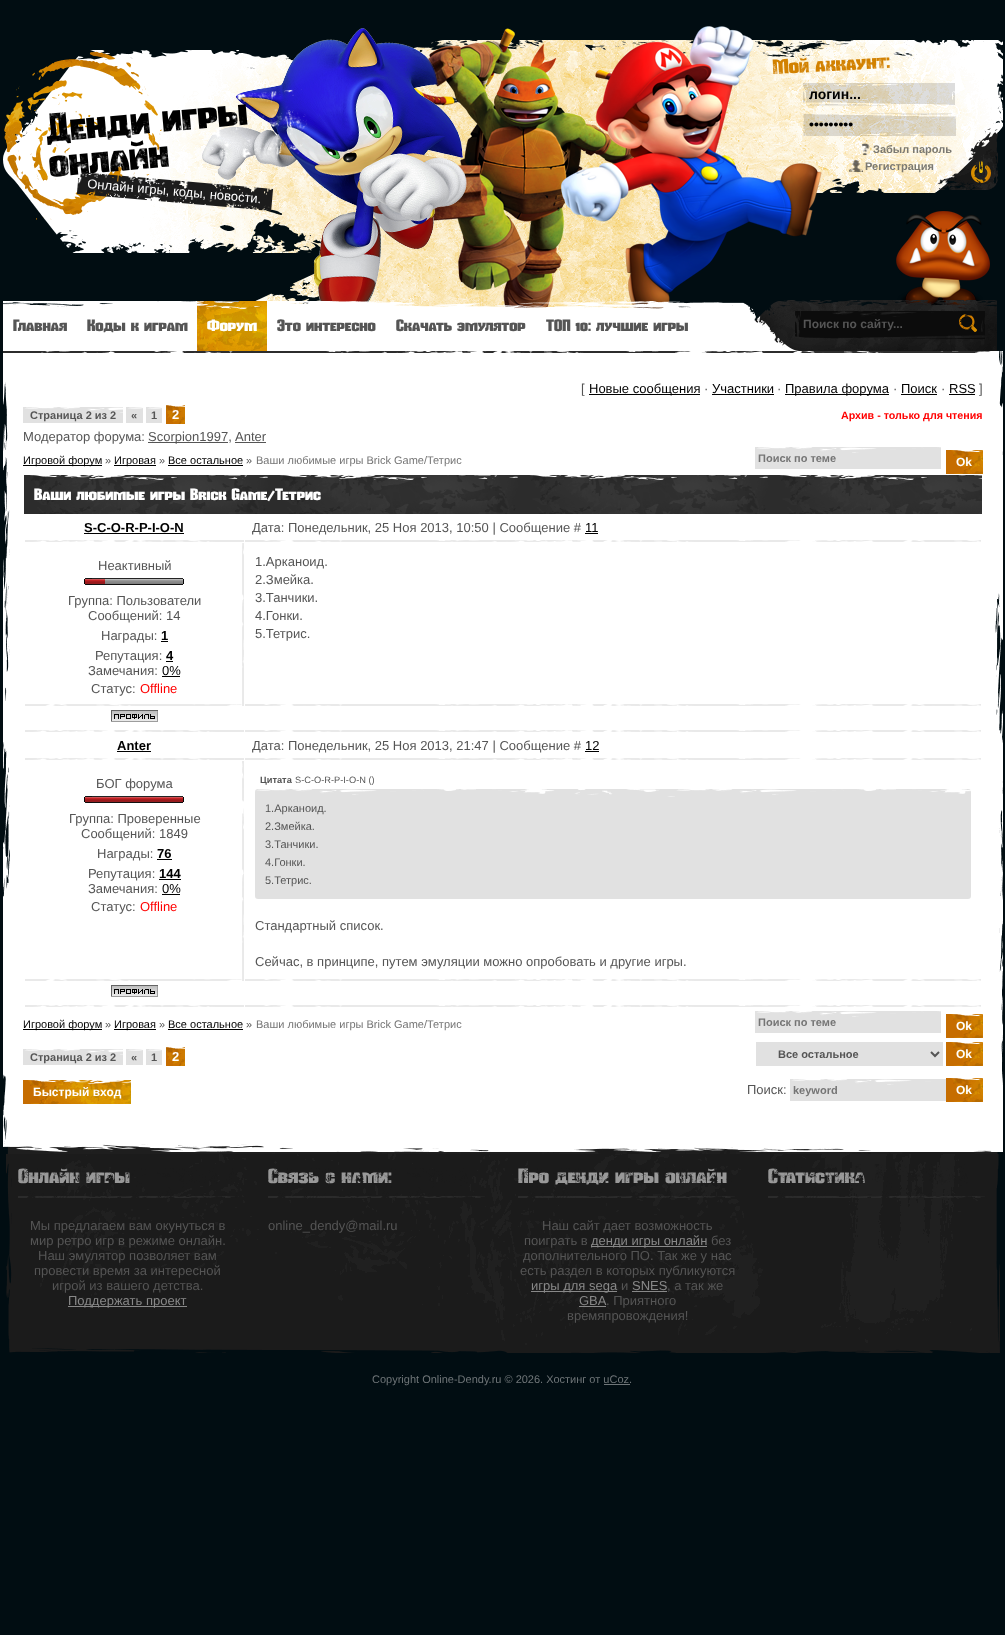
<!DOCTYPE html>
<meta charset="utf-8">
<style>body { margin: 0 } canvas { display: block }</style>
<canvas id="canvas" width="1005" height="1635"></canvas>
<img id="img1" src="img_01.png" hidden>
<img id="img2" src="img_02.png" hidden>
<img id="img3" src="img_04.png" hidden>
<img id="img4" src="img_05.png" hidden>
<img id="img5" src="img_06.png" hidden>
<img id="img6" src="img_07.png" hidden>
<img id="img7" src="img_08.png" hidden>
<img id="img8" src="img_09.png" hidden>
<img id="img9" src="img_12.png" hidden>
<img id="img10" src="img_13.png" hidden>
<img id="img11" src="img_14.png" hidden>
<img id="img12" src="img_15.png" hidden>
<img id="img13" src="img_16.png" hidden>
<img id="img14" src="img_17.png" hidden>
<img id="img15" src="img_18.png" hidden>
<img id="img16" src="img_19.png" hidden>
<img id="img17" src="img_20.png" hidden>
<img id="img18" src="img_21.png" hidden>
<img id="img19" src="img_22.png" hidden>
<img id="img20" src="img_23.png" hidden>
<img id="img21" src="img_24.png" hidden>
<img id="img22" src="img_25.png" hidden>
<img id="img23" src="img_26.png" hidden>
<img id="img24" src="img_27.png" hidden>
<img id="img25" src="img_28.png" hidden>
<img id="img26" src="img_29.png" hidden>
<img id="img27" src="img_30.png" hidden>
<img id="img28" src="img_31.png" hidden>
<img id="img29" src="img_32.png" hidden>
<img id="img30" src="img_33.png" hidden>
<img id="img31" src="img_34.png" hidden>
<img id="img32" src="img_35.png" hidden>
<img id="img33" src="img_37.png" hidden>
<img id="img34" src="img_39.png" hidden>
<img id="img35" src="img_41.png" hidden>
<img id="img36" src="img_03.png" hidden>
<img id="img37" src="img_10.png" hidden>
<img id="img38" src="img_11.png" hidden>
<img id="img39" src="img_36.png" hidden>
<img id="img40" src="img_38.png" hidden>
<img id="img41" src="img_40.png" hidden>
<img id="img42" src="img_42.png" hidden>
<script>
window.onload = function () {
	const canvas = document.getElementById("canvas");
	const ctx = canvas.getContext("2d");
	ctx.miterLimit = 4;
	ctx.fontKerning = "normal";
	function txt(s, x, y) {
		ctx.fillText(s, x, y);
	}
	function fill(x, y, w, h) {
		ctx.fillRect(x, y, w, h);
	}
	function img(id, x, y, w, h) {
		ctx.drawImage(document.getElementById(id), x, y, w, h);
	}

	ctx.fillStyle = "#010D12";
	fill(0, 0, 1005, 1635);
	img("img1", 3, 26, 1000, 283);
	img("img2", 4, 51, 158, 169);
	img("img3", 803, 83, 152, 23);
	img("img4", 803, 113, 153, 23);
	img("img5", 862, 143, 8, 12);
	img("img6", 849, 160, 14, 12);
	img("img7", 928, 127, 74, 66);
	img("img8", 971, 161, 20, 22);
	img("img9", 3, 300, 1000, 53);
	img("img10", 197, 301, 70, 50);
	img("img11", 959, 314, 18, 18);
	img("img12", 3, 353, 1000, 791);
	ctx.fillStyle = "#000000";
	fill(589, 394, 111, 1);
	fill(712, 394, 62, 1);
	fill(785, 394, 104, 1);
	fill(901, 394, 36, 1);
	fill(949, 394, 26, 1);
	img("img13", 23, 407, 100, 16);
	img("img14", 126, 407, 17, 16);
	img("img15", 146, 407, 16, 16);
	img("img16", 166, 405, 19, 19);
	ctx.fillStyle = "#555555";
	fill(148, 442, 80, 1);
	fill(235, 442, 31, 1);
	ctx.fillStyle = "#000000";
	fill(23, 465, 79, 1);
	fill(114, 465, 42, 1);
	fill(168, 465, 75, 1);
	img("img17", 755, 447, 186, 22);
	img("img18", 946, 450, 37, 24);
	img("img19", 24, 475, 958, 39);
	img("img20", 25, 540, 219, 2);
	fill(84, 533, 100, 1);
	img("img21", 245, 540, 736, 2);
	fill(585, 533, 13, 1);
	img("img22", 25, 543, 219, 163);
	img("img23", 84, 578, 100, 7);
	fill(161, 641, 7, 1);
	fill(166, 661, 7, 1);
	fill(162, 676, 18, 1);
	img("img21", 245, 704, 736, 2);
	img("img20", 25, 730, 219, 2);
	img("img24", 111, 710, 47, 12);
	img("img21", 245, 730, 736, 2);
	img("img20", 25, 758, 219, 2);
	fill(117, 751, 34, 1);
	img("img21", 245, 758, 736, 2);
	fill(585, 751, 14, 1);
	img("img25", 25, 761, 219, 220);
	img("img26", 84, 796, 100, 7);
	fill(157, 859, 15, 1);
	fill(159, 879, 22, 1);
	fill(162, 894, 18, 1);
	img("img21", 245, 979, 736, 2);
	img("img27", 255, 789, 716, 110);
	img("img20", 25, 1005, 219, 2);
	img("img24", 111, 985, 47, 12);
	img("img21", 245, 1005, 736, 2);
	fill(23, 1029, 79, 1);
	fill(114, 1029, 42, 1);
	fill(168, 1029, 75, 1);
	img("img17", 755, 1011, 186, 22);
	img("img18", 946, 1014, 37, 24);
	img("img13", 23, 1049, 100, 16);
	img("img14", 126, 1049, 17, 16);
	img("img15", 146, 1049, 16, 16);
	img("img16", 166, 1047, 19, 19);
	ctx.fillStyle = "#E1E1E1";
	fill(756, 1042, 187, 24);
	ctx.beginPath();
	ctx.moveTo(931, 1052);
	ctx.lineTo(935, 1056);
	ctx.lineTo(939, 1052);
	ctx.strokeStyle = "#555555";
	ctx.lineWidth = 2;
	ctx.stroke();
	img("img18", 946, 1042, 37, 24);
	img("img28", 23, 1080, 108, 24);
	img("img29", 790, 1079, 156, 22);
	img("img18", 946, 1078, 37, 24);
	img("img30", 3, 1144, 1000, 10);
	img("img31", 6, 1154, 994, 199);
	img("img32", 18, 1196, 217, 2);
	ctx.fillStyle = "#888888";
	fill(68, 1306, 119, 1);
	img("img33", 268, 1196, 217, 2);
	img("img34", 518, 1196, 217, 2);
	fill(591, 1246, 116, 1);
	fill(531, 1291, 86, 1);
	fill(632, 1291, 35, 1);
	fill(579, 1306, 27, 1);
	img("img35", 768, 1196, 217, 2);
	ctx.fillStyle = "#6F7578";
	fill(604, 1384, 26, 1);
	ctx.font = "900 20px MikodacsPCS";
	ctx.fillStyle = "#D28100";
	ctx.save();
	ctx.translate(773, 74);
	ctx.rotate(-3 * Math.PI / 180);
	ctx.fillText("Мой аккаунт:", 0, 0);
	ctx.restore();
	img("img36", 773, 57, 163, 25);
	ctx.font = "bold 14px Liberation Sans";
	ctx.fillStyle = "#000000";
	txt("логин...", 809, 99);
	txt("•••••••••", 809, 129);
	ctx.font = "bold 11px Liberation Sans";
	ctx.fillStyle = "#7B7972";
	txt("Забыл пароль", 873, 153);
	txt("Регистрация", 865, 170);
	ctx.font = "900 39px MikodacsPCS";
	ctx.fillStyle = "#000000";
	ctx.save();
	ctx.translate(47, 142);
	ctx.rotate(-5 * Math.PI / 180);
	ctx.fillText("Денди игры", 0, 0);
	ctx.restore();
	ctx.save();
	ctx.translate(50, 177);
	ctx.rotate(-5 * Math.PI / 180);
	ctx.fillText("онлайн", 0, 0);
	ctx.restore();
	img("img37", 48, 89, 260, 100);
	img("img38", 76, 172, 198, 39);
	ctx.font = "13px Liberation Sans";
	ctx.fillStyle = "#FFFFFF";
	ctx.save();
	ctx.translate(87, 188);
	ctx.rotate(5 * Math.PI / 180);
	ctx.fillText("Онлайн игры, коды, новости.", 0, 0);
	ctx.restore();
	ctx.font = "900 16px MikodacsPCS";
	ctx.fillStyle = "#555555";
	txt("Главная", 13, 331);
	txt("Коды к играм", 87, 331);
	ctx.fillStyle = "#FFFFFF";
	txt("Форум", 207, 331);
	ctx.fillStyle = "#555555";
	txt("Это интересно", 277, 331);
	txt("Скачать эмулятор", 396, 331);
	txt("ТОП 10: лучшие игры", 546, 331);
	ctx.font = "bold 12px Liberation Sans";
	txt("Поиск по сайту...", 803, 328);
	ctx.font = "13px Liberation Sans";
	txt("[", 581, 393);
	ctx.fillStyle = "#000000";
	txt("Новые сообщения", 589, 393);
	ctx.fillStyle = "#555555";
	txt("·", 704, 393);
	ctx.fillStyle = "#000000";
	txt("Участники", 712, 393);
	ctx.fillStyle = "#555555";
	txt("·", 777, 393);
	ctx.fillStyle = "#000000";
	txt("Правила форума", 785, 393);
	ctx.fillStyle = "#555555";
	txt("·", 893, 393);
	ctx.fillStyle = "#000000";
	txt("Поиск", 901, 393);
	ctx.fillStyle = "#555555";
	txt("·", 941, 393);
	ctx.fillStyle = "#000000";
	txt("RSS", 949, 393);
	ctx.fillStyle = "#555555";
	txt("]", 979, 393);
	ctx.font = "bold 11px Liberation Sans";
	txt("Страница 2 из 2", 30, 419);
	txt("«", 131, 419);
	txt("1", 151, 419);
	ctx.font = "bold 13px Liberation Sans";
	ctx.fillStyle = "#FFFFFF";
	txt("2", 172, 419);
	ctx.font = "bold 10.7px Liberation Sans";
	ctx.fillStyle = "#FF0000";
	txt("Архив - только для чтения", 841, 419);
	ctx.font = "13px Liberation Sans";
	ctx.fillStyle = "#555555";
	txt("Модератор форума:", 23, 441);
	txt("Scorpion1997,", 148, 441);
	txt("Anter", 235, 441);
	ctx.font = "11px Liberation Sans";
	ctx.fillStyle = "#000000";
	txt("Игровой форум", 23, 464);
	ctx.fillStyle = "#555555";
	txt("»", 105, 464);
	ctx.fillStyle = "#000000";
	txt("Игровая", 114, 464);
	ctx.fillStyle = "#555555";
	txt("»", 159, 464);
	ctx.fillStyle = "#000000";
	txt("Все остальное", 168, 464);
	ctx.fillStyle = "#555555";
	txt("»", 246, 464);
	ctx.fillStyle = "#757575";
	txt("Ваши любимые игры Brick Game/Тетрис", 256, 464);
	ctx.font = "bold 11px Liberation Sans";
	txt("Поиск по теме", 758, 462);
	ctx.font = "bold 12px Liberation Sans";
	ctx.fillStyle = "#FFFFFF";
	txt("Ok", 956, 466);
	ctx.font = "900 16px MikodacsPCS";
	txt("Ваши любимые игры Brick Game/Тетрис", 34, 500);
	ctx.font = "bold 13px Liberation Sans";
	ctx.fillStyle = "#000000";
	txt("S-C-O-R-P-I-O-N", 84, 532);
	ctx.font = "13px Liberation Sans";
	ctx.fillStyle = "#555555";
	txt("Дата: Понедельник, 25 Ноя 2013, 10:50 | Сообщение #", 252, 532);
	ctx.fillStyle = "#000000";
	txt("11", 585, 532);
	ctx.fillStyle = "#555555";
	txt("Неактивный", 98, 570);
	txt("Группа: Пользователи", 68, 605);
	txt("Сообщений: 14", 88, 620);
	txt("Награды:", 101, 640);
	ctx.font = "bold 13px Liberation Sans";
	ctx.fillStyle = "#000000";
	txt("1", 161, 640);
	ctx.font = "13px Liberation Sans";
	ctx.fillStyle = "#555555";
	txt("Репутация:", 95, 660);
	ctx.font = "bold 13px Liberation Sans";
	ctx.fillStyle = "#000000";
	txt("4", 166, 660);
	ctx.font = "13px Liberation Sans";
	ctx.fillStyle = "#555555";
	txt("Замечания:", 88, 675);
	ctx.fillStyle = "#000000";
	txt("0%", 162, 675);
	ctx.fillStyle = "#555555";
	txt("Статус:", 91, 693);
	ctx.fillStyle = "#FF0000";
	txt("Offline", 140, 693);
	ctx.fillStyle = "#555555";
	txt("1.Арканоид.", 255, 566);
	txt("2.Змейка.", 255, 584);
	txt("3.Танчики.", 255, 602);
	txt("4.Гонки.", 255, 620);
	txt("5.Тетрис.", 255, 638);
	ctx.font = "bold 13px Liberation Sans";
	ctx.fillStyle = "#000000";
	txt("Anter", 117, 750);
	ctx.font = "13px Liberation Sans";
	ctx.fillStyle = "#555555";
	txt("Дата: Понедельник, 25 Ноя 2013, 21:47 | Сообщение #", 252, 750);
	ctx.fillStyle = "#000000";
	txt("12", 585, 750);
	ctx.fillStyle = "#555555";
	txt("БОГ форума", 96, 788);
	txt("Группа: Проверенные", 69, 823);
	txt("Сообщений: 1849", 81, 838);
	txt("Награды:", 97, 858);
	ctx.font = "bold 13px Liberation Sans";
	ctx.fillStyle = "#000000";
	txt("76", 157, 858);
	ctx.font = "13px Liberation Sans";
	ctx.fillStyle = "#555555";
	txt("Репутация:", 88, 878);
	ctx.font = "bold 13px Liberation Sans";
	ctx.fillStyle = "#000000";
	txt("144", 159, 878);
	ctx.font = "13px Liberation Sans";
	ctx.fillStyle = "#555555";
	txt("Замечания:", 88, 893);
	ctx.fillStyle = "#000000";
	txt("0%", 162, 893);
	ctx.fillStyle = "#555555";
	txt("Статус:", 91, 911);
	ctx.fillStyle = "#FF0000";
	txt("Offline", 140, 911);
	ctx.font = "bold 9.25px Liberation Sans";
	ctx.fillStyle = "#555555";
	txt("Цитата", 260, 783);
	ctx.font = "9.25px Liberation Sans";
	txt("S-C-O-R-P-I-O-N ()", 295, 783);
	ctx.font = "11px Liberation Sans";
	txt("1.Арканоид.", 265, 812);
	txt("2.Змейка.", 265, 830);
	txt("3.Танчики.", 265, 848);
	txt("4.Гонки.", 265, 866);
	txt("5.Тетрис.", 265, 884);
	ctx.font = "13px Liberation Sans";
	txt("Стандартный список.", 255, 930);
	txt("Сейчас, в принципе, путем эмуляции можно опробовать и другие игры.", 255, 966);
	ctx.font = "11px Liberation Sans";
	ctx.fillStyle = "#000000";
	txt("Игровой форум", 23, 1028);
	ctx.fillStyle = "#555555";
	txt("»", 105, 1028);
	ctx.fillStyle = "#000000";
	txt("Игровая", 114, 1028);
	ctx.fillStyle = "#555555";
	txt("»", 159, 1028);
	ctx.fillStyle = "#000000";
	txt("Все остальное", 168, 1028);
	ctx.fillStyle = "#555555";
	txt("»", 246, 1028);
	ctx.fillStyle = "#757575";
	txt("Ваши любимые игры Brick Game/Тетрис", 256, 1028);
	ctx.font = "bold 11px Liberation Sans";
	txt("Поиск по теме", 758, 1026);
	ctx.font = "bold 12px Liberation Sans";
	ctx.fillStyle = "#FFFFFF";
	txt("Ok", 956, 1030);
	ctx.font = "bold 11px Liberation Sans";
	ctx.fillStyle = "#555555";
	txt("Страница 2 из 2", 30, 1061);
	txt("«", 131, 1061);
	txt("1", 151, 1061);
	ctx.font = "bold 13px Liberation Sans";
	ctx.fillStyle = "#FFFFFF";
	txt("2", 172, 1061);
	ctx.font = "bold 11px Liberation Sans";
	ctx.fillStyle = "#555555";
	txt("Все остальное", 778, 1058);
	ctx.font = "bold 12px Liberation Sans";
	ctx.fillStyle = "#FFFFFF";
	txt("Ok", 956, 1058);
	txt("Быстрый вход", 33, 1096);
	ctx.font = "13px Liberation Sans";
	ctx.fillStyle = "#555555";
	txt("Поиск:", 747, 1094);
	ctx.font = "bold 11px Liberation Sans";
	ctx.fillStyle = "#757575";
	txt("keyword", 793, 1094);
	ctx.font = "bold 12px Liberation Sans";
	ctx.fillStyle = "#FFFFFF";
	txt("Ok", 956, 1094);
	ctx.font = "900 20px MikodacsPCS";
	ctx.fillStyle = "#999999";
	txt("Онлайн игры", 18, 1183);
	img("img39", 18, 1168, 220, 30);
	ctx.font = "13px Liberation Sans";
	ctx.fillStyle = "#555555";
	txt("Мы предлагаем вам окунуться в", 30, 1230);
	txt("мир ретро игр в режиме онлайн.", 30, 1245);
	txt("Наш эмулятор позволяет вам", 38, 1260);
	txt("провести время за интересной", 34, 1275);
	txt("игрой из вашего детства.", 52, 1290);
	ctx.fillStyle = "#888888";
	txt("Поддержать проект", 68, 1305);
	ctx.font = "900 20px MikodacsPCS";
	ctx.fillStyle = "#999999";
	txt("Связь с нами:", 268, 1183);
	img("img40", 268, 1168, 207, 30);
	ctx.font = "13px Liberation Sans";
	ctx.fillStyle = "#555555";
	txt("online_dendy@mail.ru", 268, 1230);
	ctx.font = "900 20px MikodacsPCS";
	ctx.fillStyle = "#999999";
	txt("Про денди игры онлайн", 518, 1183);
	img("img41", 518, 1168, 214, 30);
	ctx.font = "13px Liberation Sans";
	ctx.fillStyle = "#555555";
	txt("Наш сайт дает возможность", 542, 1230);
	txt("поиграть в", 524, 1245);
	ctx.fillStyle = "#888888";
	txt("денди игры онлайн", 591, 1245);
	ctx.fillStyle = "#555555";
	txt("без", 711, 1245);
	txt("дополнительного ПО. Так же у нас", 523, 1260);
	txt("есть раздел в которых публикуются", 520, 1275);
	ctx.fillStyle = "#888888";
	txt("игры для sega", 531, 1290);
	ctx.fillStyle = "#555555";
	txt("и", 621, 1290);
	ctx.fillStyle = "#888888";
	txt("SNES", 632, 1290);
	ctx.fillStyle = "#555555";
	txt(", а так же", 667, 1290);
	ctx.fillStyle = "#888888";
	txt("GBA", 579, 1305);
	ctx.fillStyle = "#555555";
	txt(". Приятного", 606, 1305);
	txt("времяпровождения!", 567, 1320);
	ctx.font = "900 20px MikodacsPCS";
	ctx.fillStyle = "#999999";
	txt("Статистика", 768, 1183);
	img("img42", 768, 1164, 207, 34);
	ctx.font = "11px Liberation Sans";
	ctx.fillStyle = "#6F7578";
	txt("Copyright Online-Dendy.ru © 2026. Хостинг от uCoz.", 372, 1383);
};
</script>
